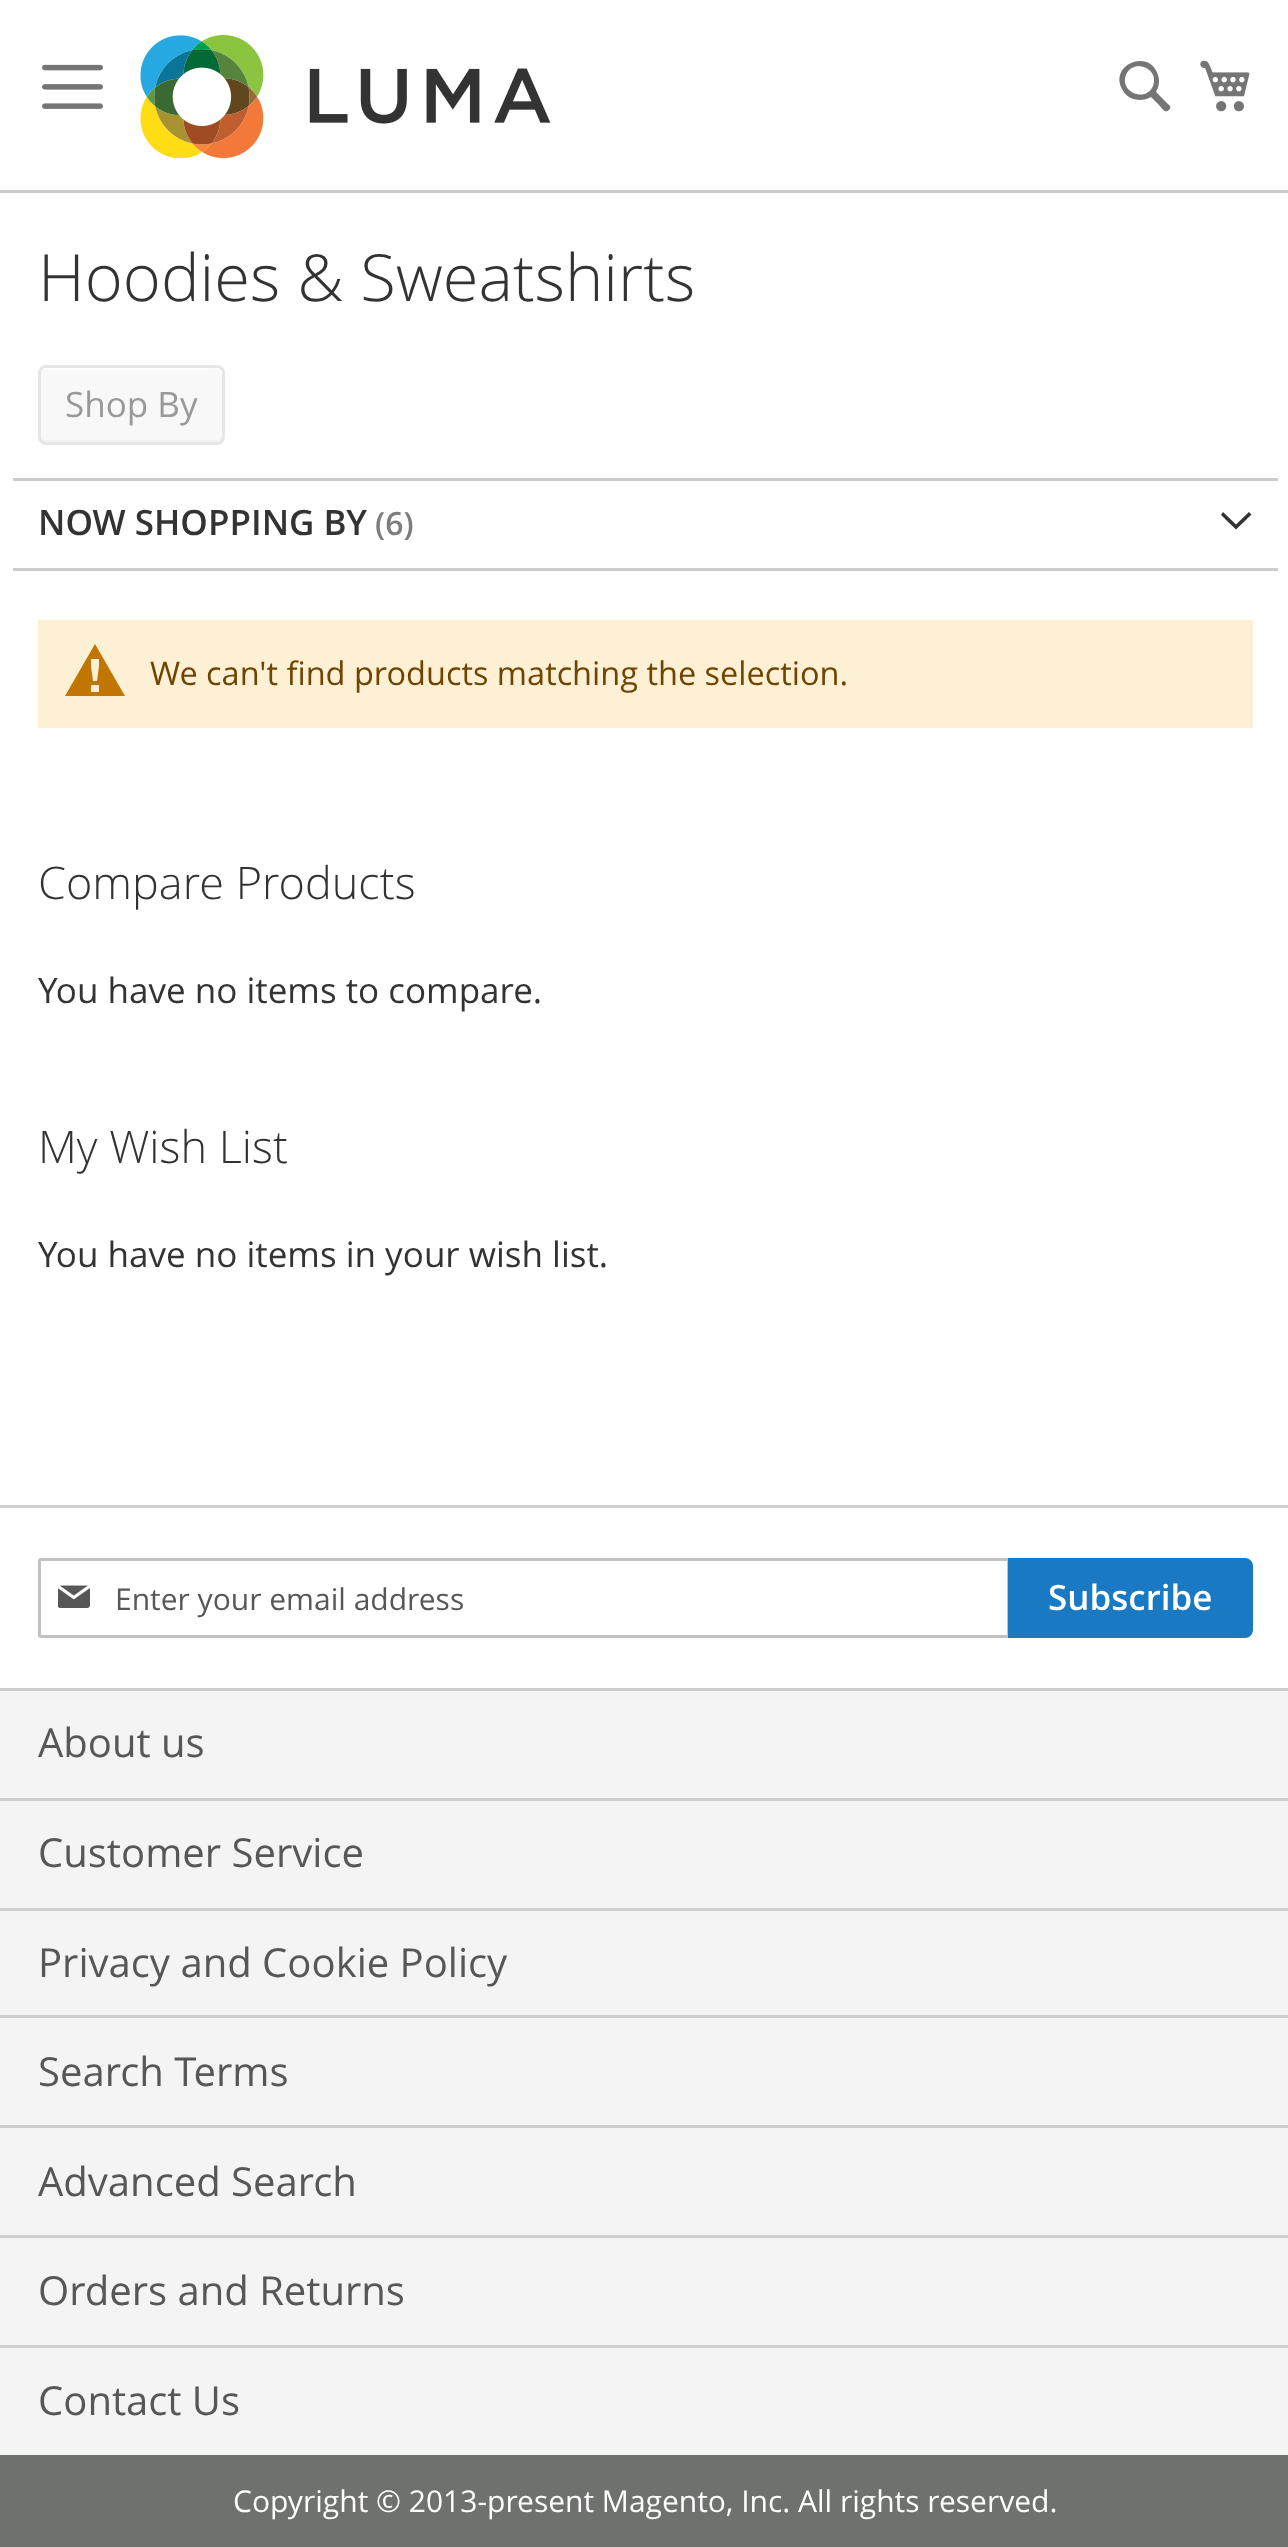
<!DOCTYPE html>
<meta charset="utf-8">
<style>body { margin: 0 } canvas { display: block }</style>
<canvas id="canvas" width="1288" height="2547"></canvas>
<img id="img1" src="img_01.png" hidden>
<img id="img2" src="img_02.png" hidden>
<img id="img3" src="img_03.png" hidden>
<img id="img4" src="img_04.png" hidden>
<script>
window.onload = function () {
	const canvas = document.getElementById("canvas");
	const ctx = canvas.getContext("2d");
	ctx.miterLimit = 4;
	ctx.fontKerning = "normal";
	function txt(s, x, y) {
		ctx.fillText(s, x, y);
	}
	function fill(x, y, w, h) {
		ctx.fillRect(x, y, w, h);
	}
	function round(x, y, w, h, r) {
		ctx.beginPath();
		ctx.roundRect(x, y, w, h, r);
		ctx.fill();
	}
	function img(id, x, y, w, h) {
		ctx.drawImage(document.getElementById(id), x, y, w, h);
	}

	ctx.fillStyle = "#FFFFFF";
	fill(0, 0, 1288, 2547);
	ctx.fillStyle = "#CCCCCC";
	fill(0, 190, 1288, 3);
	img("img1", 42, 64, 61, 45);
	img("img2", 140, 35, 411, 123);
	ctx.fillStyle = "#757575";
	ctx.beginPath();
	ctx.moveTo(1170, 106);
	ctx.lineTo(1156, 92);
	ctx.bezierCurveTo(1159, 87, 1160, 81, 1158, 75);
	ctx.bezierCurveTo(1150, 48, 1109, 64, 1122, 89);
	ctx.bezierCurveTo(1127, 100, 1141, 103, 1151, 97);
	ctx.lineTo(1159, 105);
	ctx.bezierCurveTo(1162, 108, 1165, 114, 1169, 110);
	ctx.bezierCurveTo(1170, 109, 1171, 107, 1170, 106);
	ctx.closePath();
	ctx.moveTo(1153, 86);
	ctx.bezierCurveTo(1146, 103, 1119, 92, 1126, 75);
	ctx.bezierCurveTo(1133, 58, 1160, 68, 1153, 86);
	ctx.closePath();
	ctx.fill();
	img("img3", 1200, 60, 50, 52);
	ctx.fillStyle = "#F8F8F8";
	round(38, 365, 187, 80, 8);
	ctx.fillStyle = "#F2F2F2";
	ctx.beginPath();
	ctx.moveTo(40, 435);
	ctx.lineTo(40, 438);
	ctx.bezierCurveTo(40, 441, 42, 443, 45, 443);
	ctx.lineTo(218, 443);
	ctx.bezierCurveTo(221, 443, 223, 441, 223, 438);
	ctx.lineTo(223, 373);
	ctx.bezierCurveTo(223, 372, 223, 371, 222, 370);
	ctx.lineTo(222, 435);
	ctx.bezierCurveTo(222, 438, 220, 440, 218, 440);
	ctx.lineTo(45, 440);
	ctx.bezierCurveTo(42, 440, 40, 438, 40, 435);
	ctx.closePath();
	ctx.fill();
	ctx.fillStyle = "#FFFFFF";
	ctx.beginPath();
	ctx.moveTo(45, 370);
	ctx.lineTo(189, 370);
	ctx.bezierCurveTo(227, 370, 222, 363, 222, 397);
	ctx.lineTo(222, 441);
	ctx.bezierCurveTo(223, 440, 223, 439, 223, 438);
	ctx.lineTo(223, 373);
	ctx.bezierCurveTo(223, 370, 221, 368, 218, 368);
	ctx.lineTo(45, 368);
	ctx.bezierCurveTo(42, 368, 40, 370, 40, 373);
	ctx.lineTo(40, 375);
	ctx.bezierCurveTo(40, 372, 42, 370, 45, 370);
	ctx.closePath();
	ctx.fill();
	ctx.beginPath();
	ctx.roundRect(39.5, 366.5, 184, 77, 6.5);
	ctx.strokeStyle = "#E6E6E6";
	ctx.lineWidth = 3;
	ctx.stroke();
	ctx.fillStyle = "#CCCCCC";
	fill(13, 478, 1265, 3);
	fill(13, 568, 1265, 3);
	ctx.fillStyle = "#333333";
	ctx.beginPath();
	ctx.moveTo(1236, 524.5);
	ctx.lineTo(1223, 512);
	ctx.lineTo(1221, 515);
	ctx.lineTo(1236, 529.5);
	ctx.lineTo(1251.5, 514.5);
	ctx.lineTo(1249, 512);
	ctx.closePath();
	ctx.fill();
	ctx.fillStyle = "#FDF0D5";
	fill(38, 620, 1215, 108);
	ctx.fillStyle = "#C07600";
	ctx.beginPath();
	ctx.moveTo(95, 644);
	ctx.lineTo(65, 696);
	ctx.lineTo(125, 696);
	ctx.closePath();
	ctx.moveTo(99, 659);
	ctx.lineTo(99, 666);
	ctx.lineTo(97, 681);
	ctx.lineTo(93, 681);
	ctx.lineTo(91, 666);
	ctx.lineTo(91, 659);
	ctx.closePath();
	ctx.moveTo(91, 692);
	ctx.lineTo(91, 685);
	ctx.lineTo(99, 685);
	ctx.lineTo(99, 692);
	ctx.closePath();
	ctx.fill();
	ctx.fillStyle = "#CECECE";
	fill(0, 1505, 1288, 3);
	ctx.beginPath();
	ctx.roundRect(39.5, 1559.5, 969, 77, 1);
	ctx.strokeStyle = "#C2C2C2";
	ctx.stroke();
	img("img4", 58, 1585, 32, 23);
	ctx.fillStyle = "#1979C3";
	ctx.beginPath();
	ctx.roundRect(1009.5, 1559.5, 242, 77, [0, 6.5, 6.5, 0]);
	ctx.fill();
	ctx.strokeStyle = "#1979C3";
	ctx.stroke();
	ctx.fillStyle = "#F4F4F4";
	fill(0, 1691, 1288, 107);
	ctx.fillStyle = "#CECECE";
	fill(0, 1688, 1288, 3);
	ctx.fillStyle = "#F4F4F4";
	fill(0, 1801, 1288, 107);
	ctx.fillStyle = "#CECECE";
	fill(0, 1798, 1288, 3);
	ctx.fillStyle = "#F4F4F4";
	fill(0, 1911, 1288, 104);
	ctx.fillStyle = "#CECECE";
	fill(0, 1908, 1288, 3);
	ctx.fillStyle = "#F4F4F4";
	fill(0, 2018, 1288, 107);
	ctx.fillStyle = "#CECECE";
	fill(0, 2015, 1288, 3);
	ctx.fillStyle = "#F4F4F4";
	fill(0, 2128, 1288, 107);
	ctx.fillStyle = "#CECECE";
	fill(0, 2125, 1288, 3);
	ctx.fillStyle = "#F4F4F4";
	fill(0, 2238, 1288, 107);
	ctx.fillStyle = "#CECECE";
	fill(0, 2235, 1288, 3);
	ctx.fillStyle = "#F4F4F4";
	fill(0, 2348, 1288, 107);
	ctx.fillStyle = "#CECECE";
	fill(0, 2345, 1288, 3);
	ctx.fillStyle = "#6E716E";
	fill(0, 2455, 1288, 92);
	ctx.font = "300 65px Open Sans";
	ctx.fillStyle = "#333333";
	txt("Hoodies & Sweatshirts", 38, 301);
	ctx.font = "35px Open Sans";
	ctx.fillStyle = "#999999";
	txt("Shop By", 65, 417);
	ctx.font = "600 35px Open Sans";
	ctx.fillStyle = "#333333";
	txt("NOW SHOPPING BY", 38, 535);
	ctx.font = "600 32px Open Sans";
	ctx.fillStyle = "#7D7D7D";
	txt("(6)", 375, 535);
	ctx.font = "32.5px Open Sans";
	ctx.fillStyle = "#6F4400";
	txt("We can't find products matching the selection.", 150, 685);
	ctx.font = "300 45px Open Sans";
	ctx.fillStyle = "#333333";
	txt("Compare Products", 38, 899);
	ctx.font = "35px Open Sans";
	txt("You have no items to compare.", 38, 1003);
	ctx.font = "300 45px Open Sans";
	txt("My Wish List", 38, 1163);
	ctx.font = "35px Open Sans";
	txt("You have no items in your wish list.", 38, 1267);
	ctx.font = "30px Open Sans";
	ctx.fillStyle = "#575757";
	txt("Enter your email address", 115, 1610);
	ctx.font = "600 35px Open Sans";
	ctx.fillStyle = "#FFFFFF";
	txt("Subscribe", 1048, 1610);
	ctx.font = "40px Open Sans";
	ctx.fillStyle = "#575757";
	txt("About us", 38, 1757);
	txt("Customer Service", 38, 1867);
	txt("Privacy and Cookie Policy", 38, 1977);
	txt("Search Terms", 38, 2086);
	txt("Advanced Search", 38, 2196);
	txt("Orders and Returns", 38, 2305);
	txt("Contact Us", 38, 2415);
	ctx.font = "30px Open Sans";
	ctx.fillStyle = "#FFFFFF";
	txt("Copyright © 2013-present Magento, Inc. All rights reserved.", 233, 2512);
};
</script>
